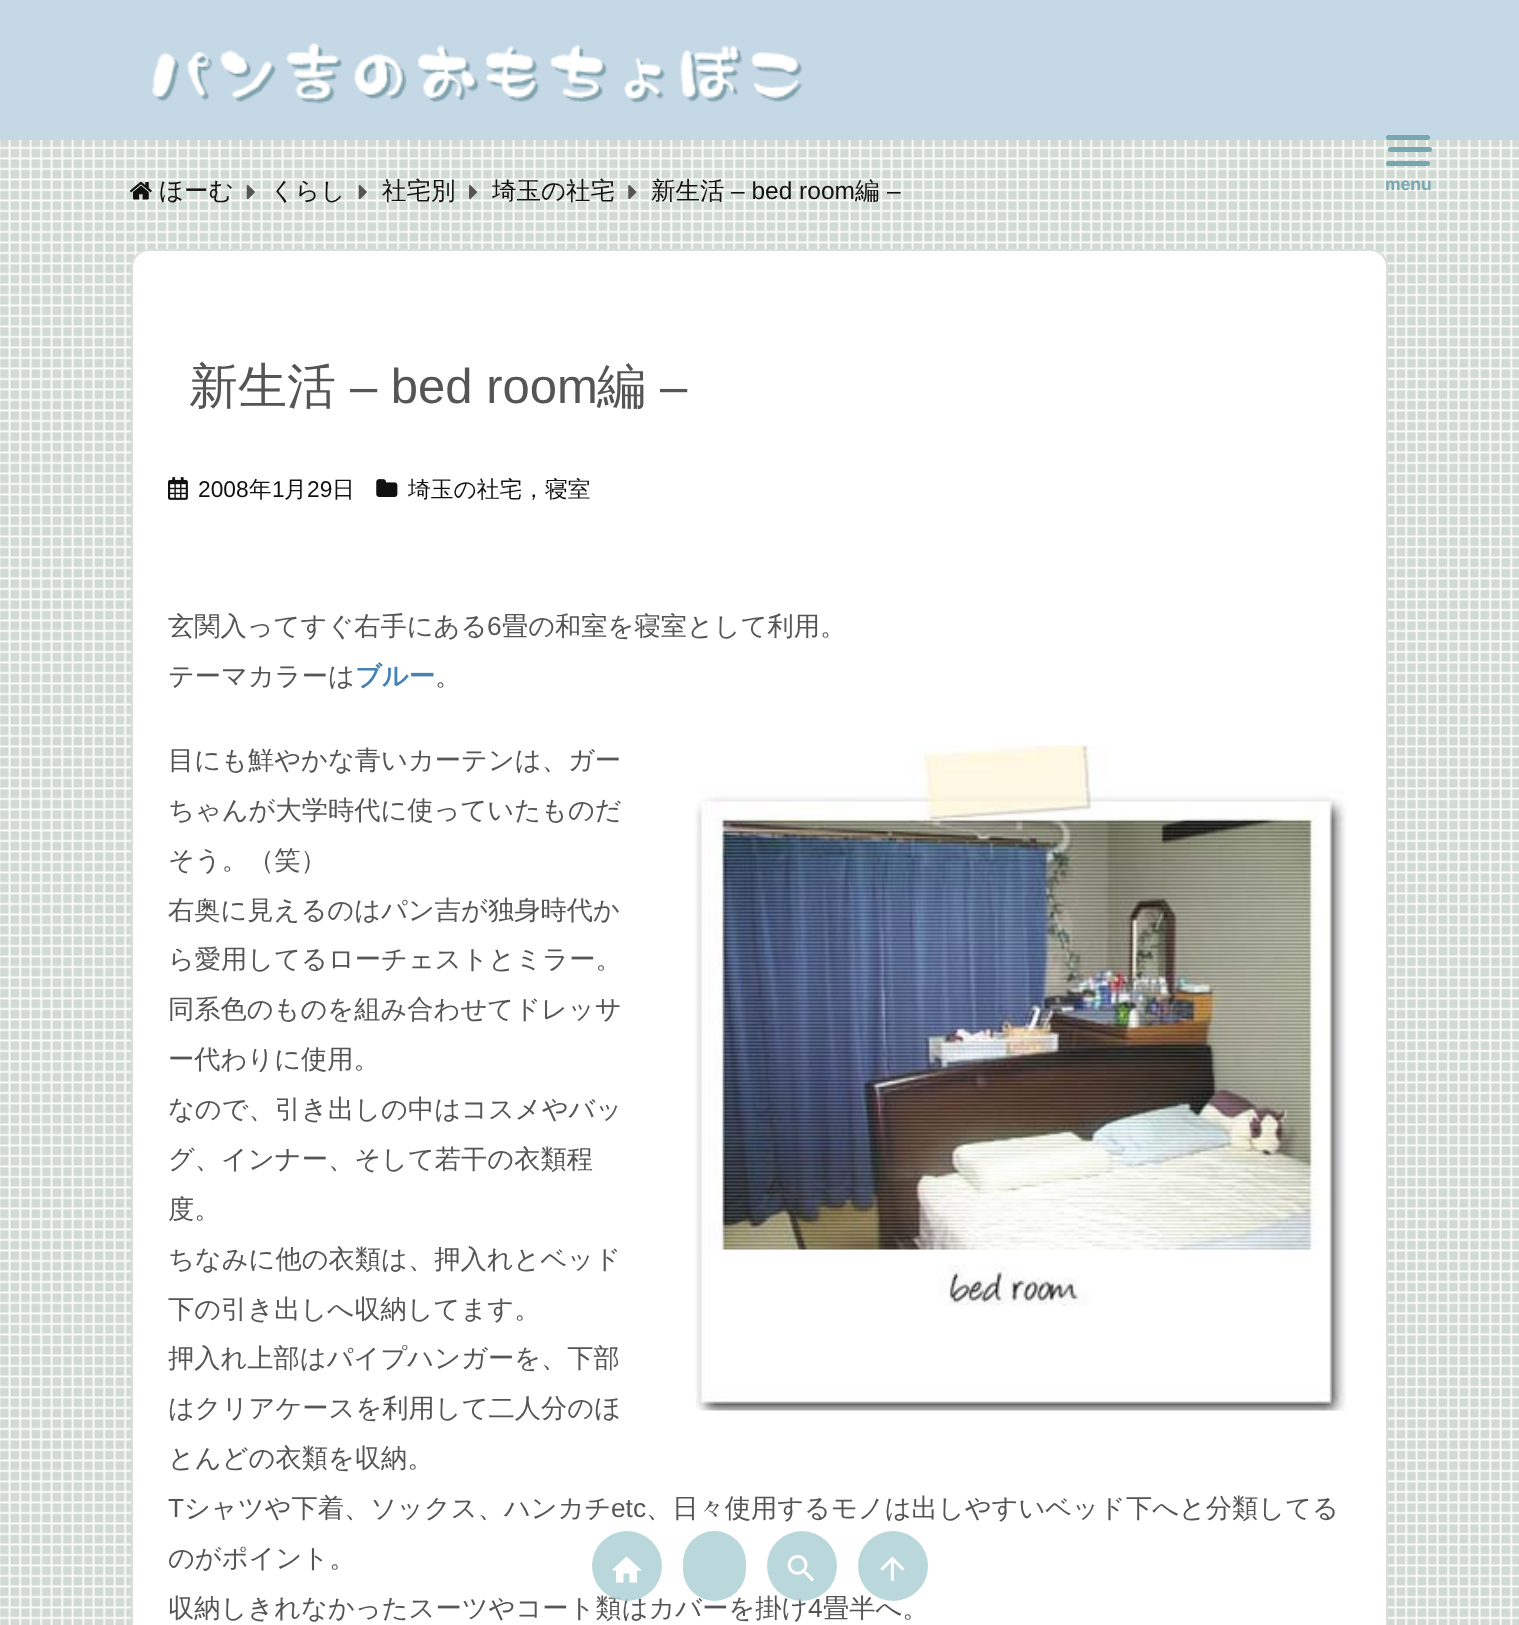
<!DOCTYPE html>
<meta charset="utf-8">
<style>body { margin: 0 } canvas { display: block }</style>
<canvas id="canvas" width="1519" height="1625"></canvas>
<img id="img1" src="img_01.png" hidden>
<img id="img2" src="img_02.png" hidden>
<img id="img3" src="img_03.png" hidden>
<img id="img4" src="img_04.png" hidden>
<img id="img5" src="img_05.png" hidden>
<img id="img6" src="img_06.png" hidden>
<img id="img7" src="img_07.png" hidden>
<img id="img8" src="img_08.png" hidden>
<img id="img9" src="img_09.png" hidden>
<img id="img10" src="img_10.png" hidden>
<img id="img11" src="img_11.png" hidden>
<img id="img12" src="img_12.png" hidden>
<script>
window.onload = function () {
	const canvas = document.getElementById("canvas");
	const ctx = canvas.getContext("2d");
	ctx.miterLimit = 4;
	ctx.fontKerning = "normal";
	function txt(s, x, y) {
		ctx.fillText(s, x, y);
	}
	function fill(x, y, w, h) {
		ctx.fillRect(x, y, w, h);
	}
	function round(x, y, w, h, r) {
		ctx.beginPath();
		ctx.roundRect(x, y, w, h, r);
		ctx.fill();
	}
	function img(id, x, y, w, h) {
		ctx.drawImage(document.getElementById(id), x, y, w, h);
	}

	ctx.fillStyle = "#FFFFFF";
	fill(0, 0, 1519, 1625);
	img("img1", 0, 140, 1519, 1485);
	img("img2", 130, 182, 22, 18);
	img("img3", 246, 185, 9, 15);
	img("img4", 358, 185, 9, 15);
	img("img5", 469, 185, 8, 15);
	img("img6", 628, 185, 9, 15);
	ctx.beginPath();
	ctx.roundRect(132, 250, 1255, 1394, 17);
	ctx.fill();
	ctx.strokeStyle = "#DDDDDD";
	ctx.lineWidth = 2;
	ctx.stroke();
	img("img7", 168, 477, 20, 23);
	img("img8", 376, 479, 22, 18);
	img("img9", 695, 745, 652, 666);
	ctx.fillStyle = "#C4D8E5";
	fill(0, 0, 1519, 140);
	img("img10", 152, 42, 650, 62);
	ctx.fillStyle = "#77A8B1";
	round(1388, 147, 44, 5, 2.5);
	round(1386, 135, 44, 5, 2.5);
	round(1386, 161, 44, 5, 2.5);
	ctx.font = "500 24.5px WenQuanYi Zen Hei";
	ctx.fillStyle = "#111111";
	txt("ほーむ", 159, 199);
	txt("くらし", 270, 199);
	txt("社宅別", 382, 199);
	txt("埼玉の社宅", 492, 199);
	txt("新生活", 651, 199);
	ctx.font = "24.5px Liberation Sans";
	txt("– bed room", 731, 199);
	ctx.font = "500 24.5px WenQuanYi Zen Hei";
	txt("編", 855, 199);
	ctx.font = "24.5px Liberation Sans";
	txt("–", 887, 199);
	ctx.font = "500 49px WenQuanYi Zen Hei";
	ctx.fillStyle = "#555555";
	txt("新生活", 189, 403);
	ctx.font = "49px Liberation Sans";
	txt("– bed room", 350, 403);
	ctx.font = "500 49px WenQuanYi Zen Hei";
	txt("編", 597, 403);
	ctx.font = "49px Liberation Sans";
	txt("–", 660, 403);
	ctx.font = "22.75px Liberation Sans";
	ctx.fillStyle = "#111111";
	txt("2008", 198, 497);
	ctx.font = "500 22.75px WenQuanYi Zen Hei";
	txt("年", 249, 497);
	ctx.font = "22.75px Liberation Sans";
	txt("1", 272, 497);
	ctx.font = "500 22.75px WenQuanYi Zen Hei";
	txt("月", 284, 497);
	ctx.font = "22.75px Liberation Sans";
	txt("29", 307, 497);
	ctx.font = "500 22.75px WenQuanYi Zen Hei";
	txt("日", 332, 497);
	txt("埼玉の社宅，寝室", 408, 497);
	ctx.font = "500 26.25px WenQuanYi Zen Hei";
	ctx.fillStyle = "#555555";
	txt("玄関入ってすぐ右手にある", 168, 635);
	ctx.font = "26.25px Liberation Sans";
	txt("6", 487, 635);
	ctx.font = "500 26.25px WenQuanYi Zen Hei";
	txt("畳の和室を寝室として利用。", 502, 635);
	txt("テーマカラーは", 168, 685);
	ctx.font = "bold 26.25px WenQuanYi Zen Hei";
	ctx.fillStyle = "#4682B4";
	txt("ブルー", 355, 685);
	ctx.font = "500 26.25px WenQuanYi Zen Hei";
	ctx.fillStyle = "#555555";
	txt("。", 435, 685);
	txt("目にも鮮やかな青いカーテンは、ガー", 168, 769);
	txt("ちゃんが大学時代に使っていたものだ", 168, 819);
	txt("そう。（笑）", 168, 869);
	txt("右奥に見えるのはパン吉が独身時代か", 168, 919);
	txt("ら愛用してるローチェストとミラー。", 168, 968);
	txt("同系色のものを組み合わせてドレッサ", 168, 1018);
	txt("ー代わりに使用。", 168, 1068);
	txt("なので、引き出しの中はコスメやバッ", 168, 1118);
	txt("グ、インナー、そして若干の衣類程", 168, 1168);
	txt("度。", 168, 1218);
	txt("ちなみに他の衣類は、押入れとベッド", 168, 1268);
	txt("下の引き出しへ収納してます。", 168, 1318);
	txt("押入れ上部はパイプハンガーを、下部", 168, 1367);
	txt("はクリアケースを利用して二人分のほ", 168, 1417);
	txt("とんどの衣類を収納。", 168, 1467);
	ctx.font = "26.25px Liberation Sans";
	txt("T", 168, 1517);
	ctx.font = "500 26.25px WenQuanYi Zen Hei";
	txt("シャツや下着、ソックス、ハンカチ", 184, 1517);
	ctx.font = "26.25px Liberation Sans";
	txt("etc", 611, 1517);
	ctx.font = "500 26.25px WenQuanYi Zen Hei";
	txt("、日々使用するモノは出しやすいベッド下へと分類してる", 646, 1517);
	txt("のがポイント。", 168, 1567);
	txt("収納しきれなかったスーツやコート類はカバーを掛け", 168, 1617);
	ctx.font = "26.25px Liberation Sans";
	txt("4", 808, 1617);
	ctx.font = "500 26.25px WenQuanYi Zen Hei";
	txt("畳半へ。", 823, 1617);
	ctx.font = "bold 17.5px Liberation Sans";
	ctx.fillStyle = "#77A8B1";
	txt("menu", 1385, 190);
	ctx.fillStyle = "rgba(177, 211, 214, 0.88)";
	ctx.beginPath();
	ctx.arc(627, 1566, 35, 0, Math.PI * 2);
	ctx.fill();
	ctx.fillStyle = "#FFFFFF";
	ctx.beginPath();
	ctx.moveTo(623.5, 1582.5);
	ctx.lineTo(616, 1582.5);
	ctx.lineTo(616, 1570.5);
	ctx.lineTo(611.5, 1570.5);
	ctx.lineTo(626.5, 1556.5);
	ctx.lineTo(642, 1570.5);
	ctx.lineTo(637, 1570.5);
	ctx.lineTo(637, 1582.5);
	ctx.lineTo(629.5, 1582.5);
	ctx.lineTo(629.5, 1573.5);
	ctx.lineTo(623.5, 1573.5);
	ctx.closePath();
	ctx.fill();
	ctx.fillStyle = "#BAD8DB";
	round(683, 1531, 63, 70, 31.5);
	ctx.fillStyle = "rgba(177, 211, 214, 0.88)";
	ctx.beginPath();
	ctx.arc(802, 1566, 35, 0, Math.PI * 2);
	ctx.fill();
	img("img11", 787, 1555, 28, 27);
	ctx.fillStyle = "#BAD8DB";
	ctx.beginPath();
	ctx.arc(893, 1566, 35, 0, Math.PI * 2);
	ctx.fill();
	img("img12", 880, 1556, 25, 25);
};
</script>
